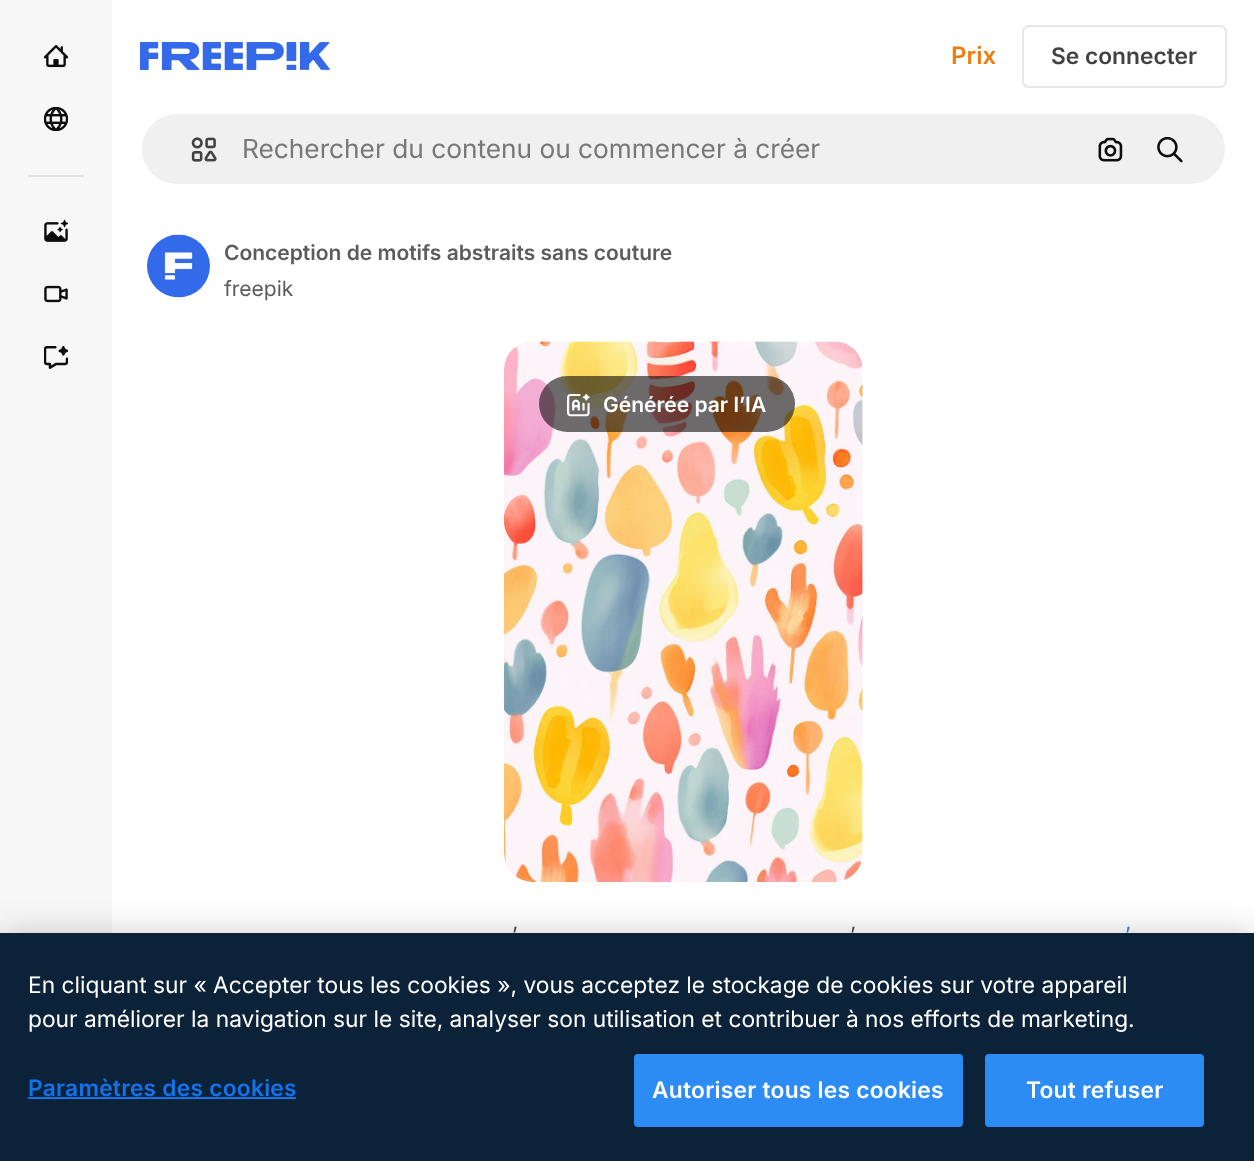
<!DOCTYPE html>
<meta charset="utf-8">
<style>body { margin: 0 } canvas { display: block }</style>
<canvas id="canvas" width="1254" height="1161"></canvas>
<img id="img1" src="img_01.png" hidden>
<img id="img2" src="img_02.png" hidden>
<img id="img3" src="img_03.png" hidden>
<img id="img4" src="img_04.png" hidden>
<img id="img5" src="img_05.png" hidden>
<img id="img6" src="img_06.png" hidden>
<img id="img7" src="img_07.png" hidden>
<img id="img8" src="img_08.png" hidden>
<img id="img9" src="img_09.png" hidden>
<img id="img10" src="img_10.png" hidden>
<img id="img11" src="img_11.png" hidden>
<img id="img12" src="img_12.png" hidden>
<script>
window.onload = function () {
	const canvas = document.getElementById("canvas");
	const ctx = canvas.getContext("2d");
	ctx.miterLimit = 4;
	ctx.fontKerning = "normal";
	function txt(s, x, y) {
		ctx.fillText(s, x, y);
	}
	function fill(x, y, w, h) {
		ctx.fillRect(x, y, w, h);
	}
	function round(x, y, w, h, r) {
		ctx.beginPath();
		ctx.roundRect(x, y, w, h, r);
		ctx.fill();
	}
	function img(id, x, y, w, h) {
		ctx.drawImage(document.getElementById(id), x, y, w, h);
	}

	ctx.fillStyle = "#FFFFFF";
	fill(0, 0, 1254, 1161);
	ctx.fillStyle = "#F7F7F7";
	fill(0, 0, 112, 933);
	img("img1", 44, 45, 24, 23);
	img("img2", 44, 107, 24, 24);
	ctx.fillStyle = "#E0E0E0";
	fill(28, 175, 56, 2);
	img("img3", 44, 219, 24, 23);
	img("img4", 44, 285, 24, 18);
	img("img5", 44, 346, 24, 23);
	img("img6", 140, 42, 190, 28);
	ctx.beginPath();
	ctx.roundRect(1023, 26, 203, 61, 6);
	ctx.strokeStyle = "#E7E7E7";
	ctx.lineWidth = 2;
	ctx.stroke();
	ctx.fillStyle = "#F0F0F0";
	ctx.beginPath();
	ctx.roundRect(141, 113, 1085, 72, 36);
	ctx.fill();
	ctx.strokeStyle = "#FFFFFF";
	ctx.stroke();
	img("img7", 191, 137, 26, 25);
	img("img8", 1098, 137, 25, 25);
	img("img9", 1157, 137, 26, 26);
	img("img10", 147, 234, 63, 64);
	img("img11", 504, 341, 359, 541);
	ctx.fillStyle = "rgba(13, 13, 13, 0.6)";
	round(539, 376, 256, 56, 28);
	img("img12", 567, 394, 23, 23);
	ctx.fillStyle = "rgba(0, 0, 0, 0.2)";
	ctx.filter = "blur(16px)";
	ctx.beginPath();
	ctx.rect(0, 933, 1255, 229);
	ctx.fill();
	ctx.filter = "none";
	ctx.fillStyle = "#0B2239";
	fill(0, 933, 1254, 228);
	ctx.fillStyle = "#1273EB";
	fill(28, 1097, 268, 2);
	ctx.fillStyle = "#2C8CF4";
	ctx.beginPath();
	ctx.roundRect(635, 1055, 327, 71, 3);
	ctx.fill();
	ctx.strokeStyle = "#2C8CF4";
	ctx.stroke();
	ctx.beginPath();
	ctx.roundRect(986, 1055, 217, 71, 3);
	ctx.fill();
	ctx.stroke();
	ctx.font = "600 24px Inter";
	ctx.fillStyle = "#EA7E11";
	txt("Prix", 951, 64);
	ctx.font = "600 22.75px Inter";
	ctx.fillStyle = "#424242";
	txt("Se connecter", 1051, 64);
	ctx.font = "26.25px Inter";
	ctx.fillStyle = "#777777";
	txt("Rechercher du contenu ou commencer à créer", 242, 158);
	ctx.font = "600 21px Inter";
	ctx.fillStyle = "#5C5C5C";
	txt("Conception de motifs abstraits sans couture", 224, 260);
	ctx.font = "21px Inter";
	txt("freepik", 224, 296);
	ctx.font = "600 21px Inter";
	ctx.fillStyle = "#FFFFFF";
	txt("Générée par l’IA", 603, 412);
	ctx.font = "21px Inter";
	ctx.fillStyle = "#424242";
	txt("’", 512, 942);
	txt("’", 850, 942);
	ctx.fillStyle = "#346AEA";
	txt("’", 1125, 942);
	ctx.font = "22.75px Inter";
	ctx.fillStyle = "#FFFFFF";
	txt("En cliquant sur « Accepter tous les cookies », vous acceptez le stockage de cookies sur votre appareil", 28, 993);
	txt("pour améliorer la navigation sur le site, analyser son utilisation et contribuer à nos efforts de marketing.", 28, 1027);
	ctx.letterSpacing = "0.25px";
	ctx.font = "600 22.75px Inter";
	ctx.fillStyle = "#1273EB";
	txt("Paramètres des cookies", 28, 1096);
	ctx.fillStyle = "#FFFFFF";
	txt("Autoriser tous les cookies", 652, 1098);
	txt("Tout refuser", 1026, 1098);
};
</script>
